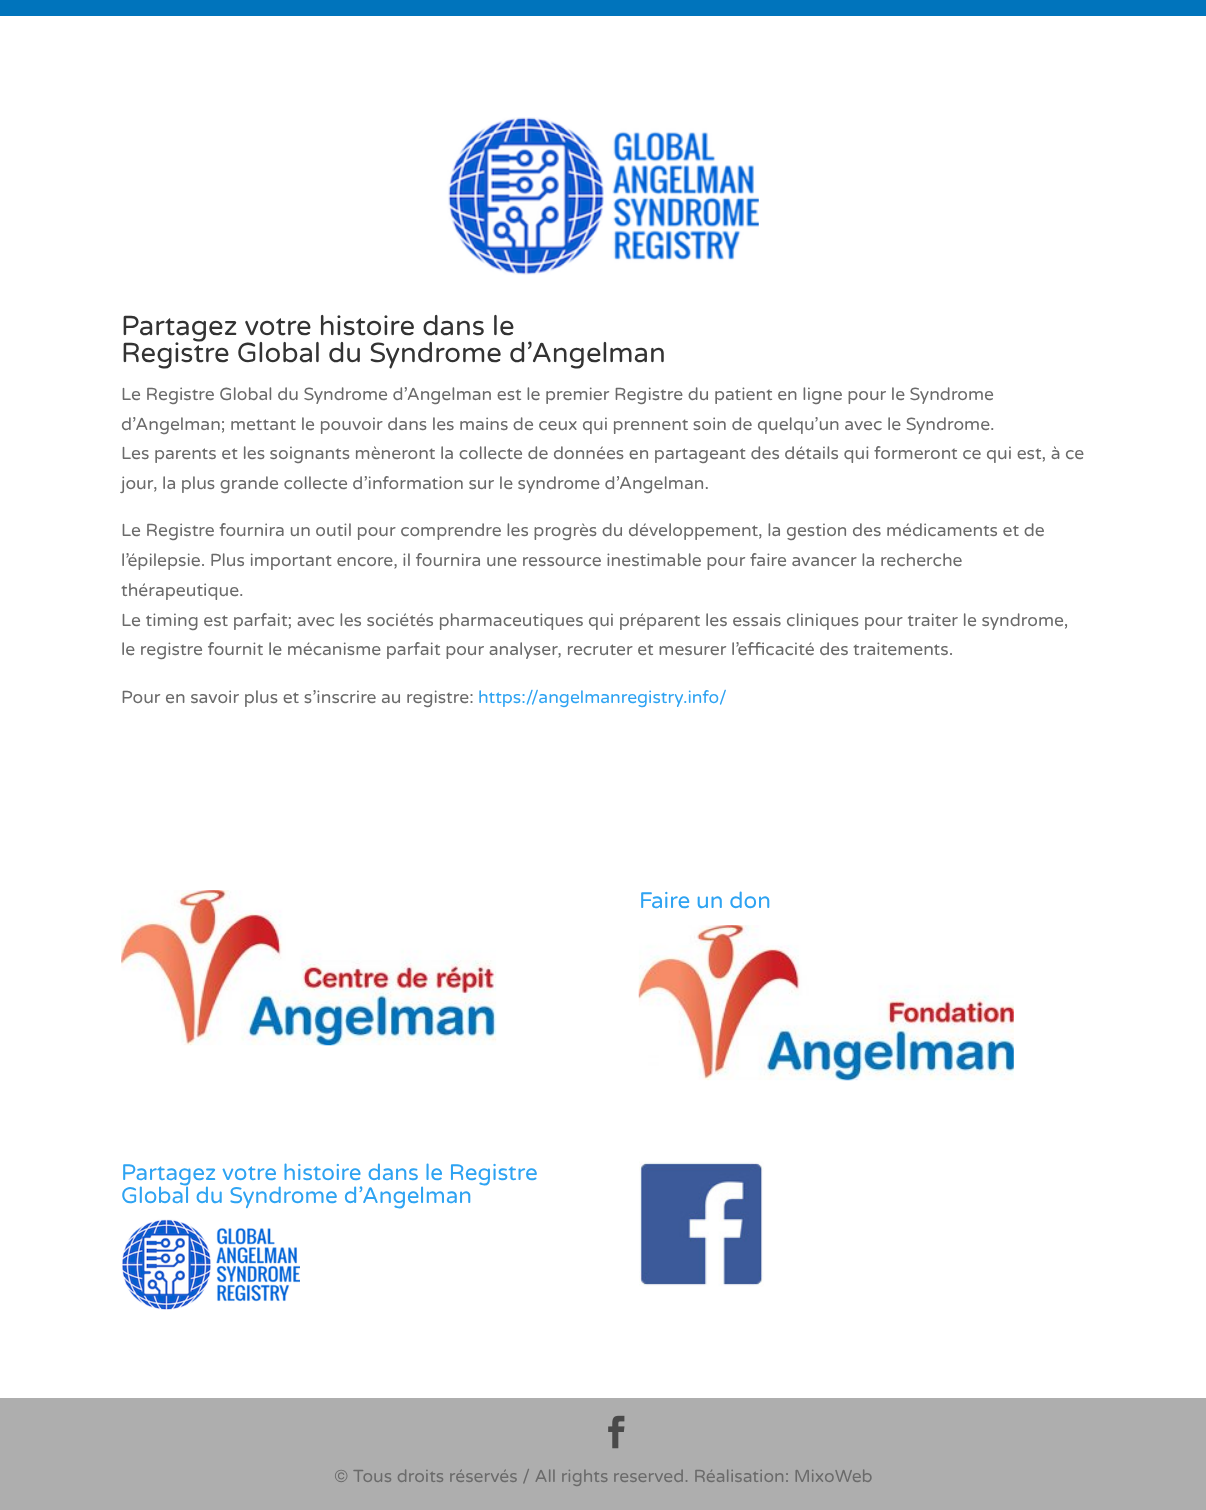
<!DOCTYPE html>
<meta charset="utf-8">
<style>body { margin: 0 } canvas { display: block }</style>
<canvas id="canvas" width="1206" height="1510"></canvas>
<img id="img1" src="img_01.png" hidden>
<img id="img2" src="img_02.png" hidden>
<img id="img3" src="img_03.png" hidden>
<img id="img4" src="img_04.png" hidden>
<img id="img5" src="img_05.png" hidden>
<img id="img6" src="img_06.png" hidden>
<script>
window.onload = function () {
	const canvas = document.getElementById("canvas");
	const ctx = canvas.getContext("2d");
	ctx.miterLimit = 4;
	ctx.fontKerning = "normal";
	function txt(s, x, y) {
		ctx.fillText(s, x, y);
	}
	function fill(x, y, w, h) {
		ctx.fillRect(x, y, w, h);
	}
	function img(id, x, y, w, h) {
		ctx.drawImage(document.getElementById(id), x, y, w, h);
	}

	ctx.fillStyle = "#FFFFFF";
	fill(0, 0, 1206, 1510);
	ctx.fillStyle = "#0074BC";
	fill(0, 0, 1206, 16);
	img("img1", 447, 117, 312, 158);
	img("img2", 121, 890, 376, 156);
	img("img3", 638, 925, 376, 156);
	img("img4", 121, 1219, 179, 91);
	img("img5", 639, 1161, 125, 126);
	ctx.fillStyle = "#AEAEAE";
	fill(0, 1398, 1206, 112);
	img("img6", 608, 1415, 17, 34);
	ctx.font = "27.5px Varela Round";
	ctx.fillStyle = "#333333";
	txt("Partagez votre histoire dans le", 121, 335);
	txt("Registre Global du Syndrome d’Angelman", 121, 362);
	ctx.font = "17.5px Varela Round";
	ctx.fillStyle = "#6B6B6B";
	txt("Le Registre Global du Syndrome d’Angelman est le premier Registre du patient en ligne pour le Syndrome", 121, 400);
	txt("d’Angelman; mettant le pouvoir dans les mains de ceux qui prennent soin de quelqu’un avec le Syndrome.", 121, 430);
	txt("Les parents et les soignants mèneront la collecte de données en partageant des détails qui formeront ce qui est, à ce", 121, 459);
	txt("jour, la plus grande collecte d’information sur le syndrome d’Angelman.", 121, 489);
	txt("Le Registre fournira un outil pour comprendre les progrès du développement, la gestion des médicaments et de", 121, 536);
	txt("l’épilepsie. Plus important encore, il fournira une ressource inestimable pour faire avancer la recherche", 121, 566);
	txt("thérapeutique.", 121, 596);
	txt("Le timing est parfait; avec les sociétés pharmaceutiques qui préparent les essais cliniques pour traiter le syndrome,", 121, 626);
	txt("le registre fournit le mécanisme parfait pour analyser, recruter et mesurer l’efficacité des traitements.", 121, 655);
	txt("Pour en savoir plus et s’inscrire au registre:", 121, 703);
	ctx.fillStyle = "#2EA3F2";
	txt("https://angelmanregistry.info/", 478, 703);
	ctx.font = "22.5px Varela Round";
	txt("Faire un don", 639, 908);
	txt("Partagez votre histoire dans le Registre", 121, 1180);
	txt("Global du Syndrome d’Angelman", 121, 1203);
	ctx.font = "17.5px Varela Round";
	ctx.fillStyle = "#6B6B6B";
	txt("© Tous droits réservés / All rights reserved. Réalisation: MixoWeb", 334, 1482);
};
</script>
